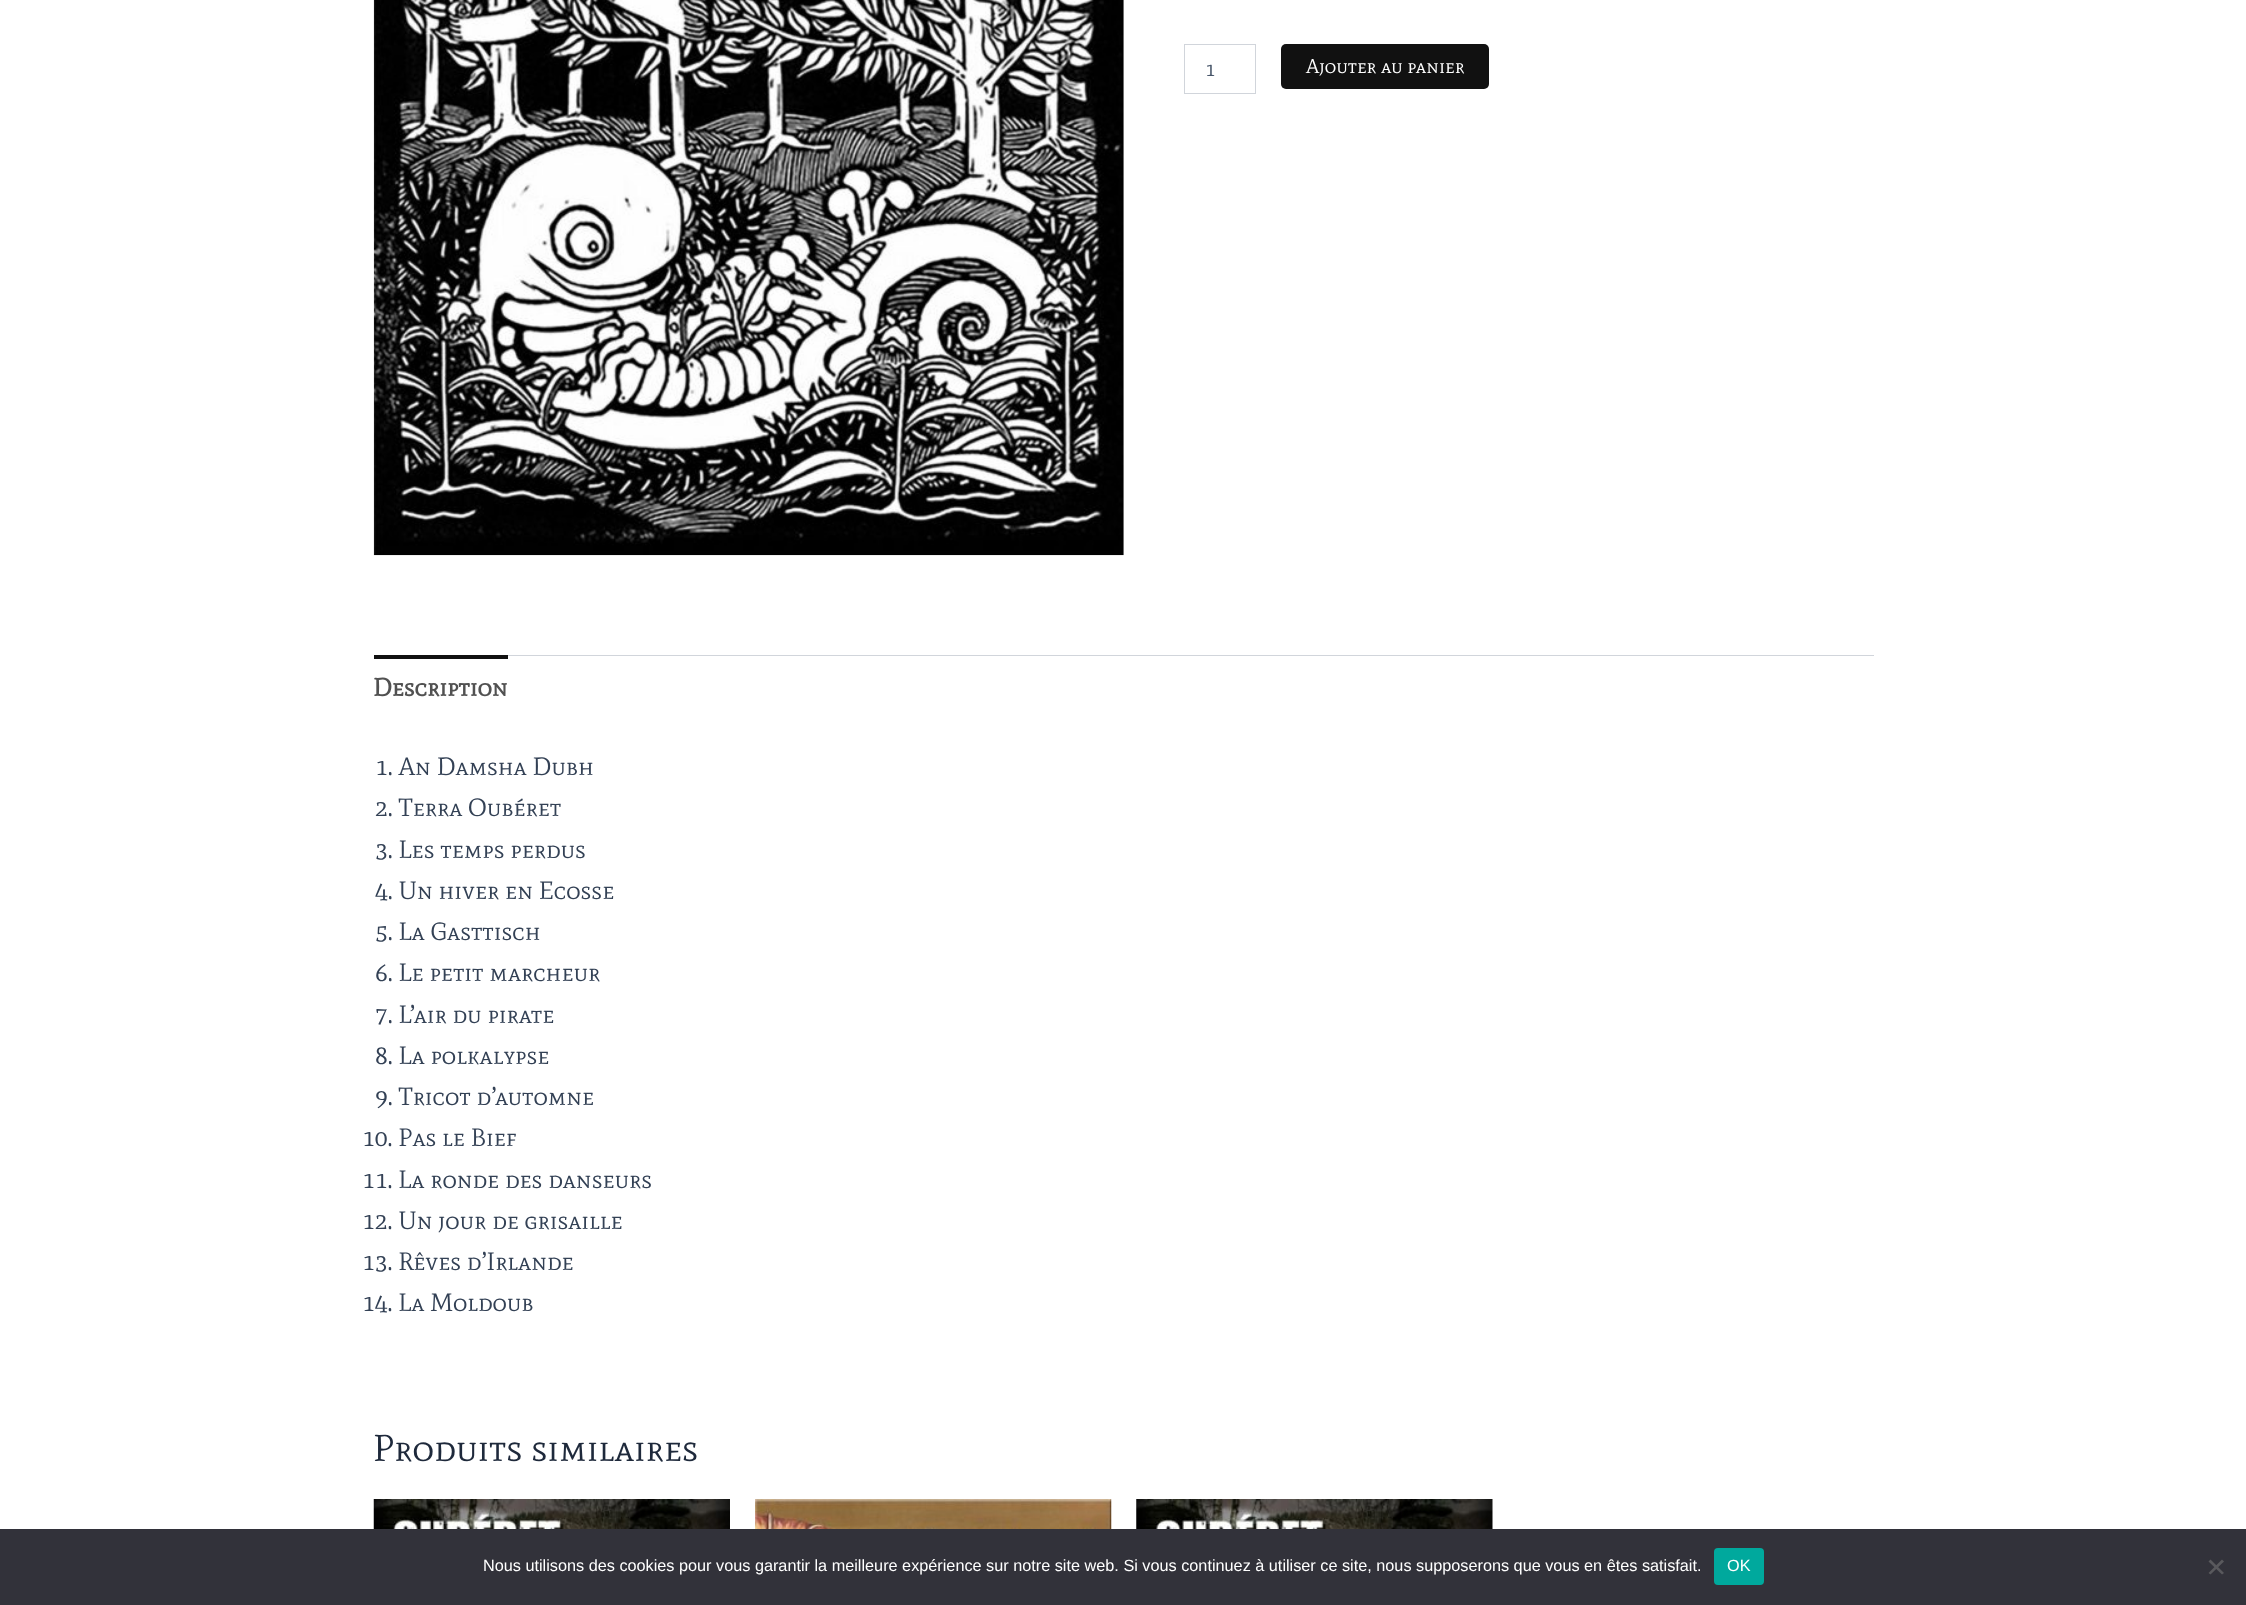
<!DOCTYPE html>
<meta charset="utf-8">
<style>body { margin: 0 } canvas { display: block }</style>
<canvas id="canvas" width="2246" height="1605"></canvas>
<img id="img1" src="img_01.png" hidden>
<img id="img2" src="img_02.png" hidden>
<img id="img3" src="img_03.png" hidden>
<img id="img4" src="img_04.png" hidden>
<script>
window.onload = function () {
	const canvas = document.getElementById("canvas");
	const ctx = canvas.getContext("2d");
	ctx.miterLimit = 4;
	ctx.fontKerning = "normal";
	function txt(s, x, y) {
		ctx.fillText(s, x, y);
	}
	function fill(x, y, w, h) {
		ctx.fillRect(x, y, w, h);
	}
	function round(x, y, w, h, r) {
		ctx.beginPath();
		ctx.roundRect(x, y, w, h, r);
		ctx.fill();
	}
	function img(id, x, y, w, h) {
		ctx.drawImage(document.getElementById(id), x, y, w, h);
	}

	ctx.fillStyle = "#FFFFFF";
	fill(0, 0, 2246, 1605);
	img("img1", 373, 0, 751, 556);
	ctx.strokeStyle = "#D1D5DB";
	ctx.strokeRect(1184.5, 44.5, 71, 49);
	ctx.fillStyle = "#111111";
	round(1281, 44, 208, 45, 5);
	ctx.fillStyle = "#D1D5DB";
	fill(508, 655, 1366, 1);
	ctx.fillStyle = "#111111";
	fill(374, 655, 134, 4);
	img("img2", 373, 1499, 357, 30);
	img("img3", 755, 1499, 357, 30);
	img("img4", 1136, 1499, 357, 30);
	ctx.fillStyle = "#32323A";
	fill(0, 1529, 2246, 76);
	ctx.fillStyle = "#00A99D";
	round(1714, 1548, 50, 37, 4);
	ctx.fillStyle = "#59595D";
	ctx.beginPath();
	ctx.moveTo(2222, 1559.5);
	ctx.lineTo(2224, 1561.5);
	ctx.lineTo(2210.5, 1574.5);
	ctx.lineTo(2208.5, 1573);
	ctx.closePath();
	ctx.fill();
	ctx.beginPath();
	ctx.moveTo(2208.5, 1561.5);
	ctx.lineTo(2210.5, 1559.5);
	ctx.lineTo(2224, 1573);
	ctx.lineTo(2222, 1574.5);
	ctx.closePath();
	ctx.fill();
	ctx.font = "20px Mate SC";
	ctx.fillStyle = "#475569";
	txt("1", 1205, 76);
	ctx.fillStyle = "#FFFFFF";
	txt("Ajouter au panier", 1306, 73);
	ctx.font = "bold 25px Mate SC";
	ctx.fillStyle = "#515151";
	txt("Description", 373, 696);
	ctx.font = "25px Mate SC";
	ctx.fillStyle = "#334155";
	txt("1. An Damsha Dubh", 375, 775);
	txt("2. Terra Oubéret", 375, 816);
	txt("3. Les temps perdus", 375, 858);
	txt("4. Un hiver en Ecosse", 375, 899);
	txt("5. La Gasttisch", 375, 940);
	txt("6. Le petit marcheur", 375, 981);
	txt("7. L’air du pirate", 375, 1023);
	txt("8. La polkalypse", 375, 1064);
	txt("9. Tricot d’automne", 375, 1105);
	txt("10. Pas le Bief", 362, 1146);
	txt("11. La ronde des danseurs", 362, 1188);
	txt("12. Un jour de grisaille", 362, 1229);
	txt("13. Rêves d’Irlande", 362, 1270);
	txt("14. La Moldoub", 362, 1311);
	ctx.font = "37.5px Mate SC";
	ctx.fillStyle = "#1E293B";
	txt("Produits similaires", 373, 1461);
	ctx.font = "16.25px Liberation Sans";
	ctx.fillStyle = "#FFFFFF";
	txt("Nous utilisons des cookies pour vous garantir la meilleure expérience sur notre site web. Si vous continuez à utiliser ce site, nous supposerons que vous en êtes satisfait.", 483, 1571);
	txt("OK", 1727, 1571);
};
</script>
